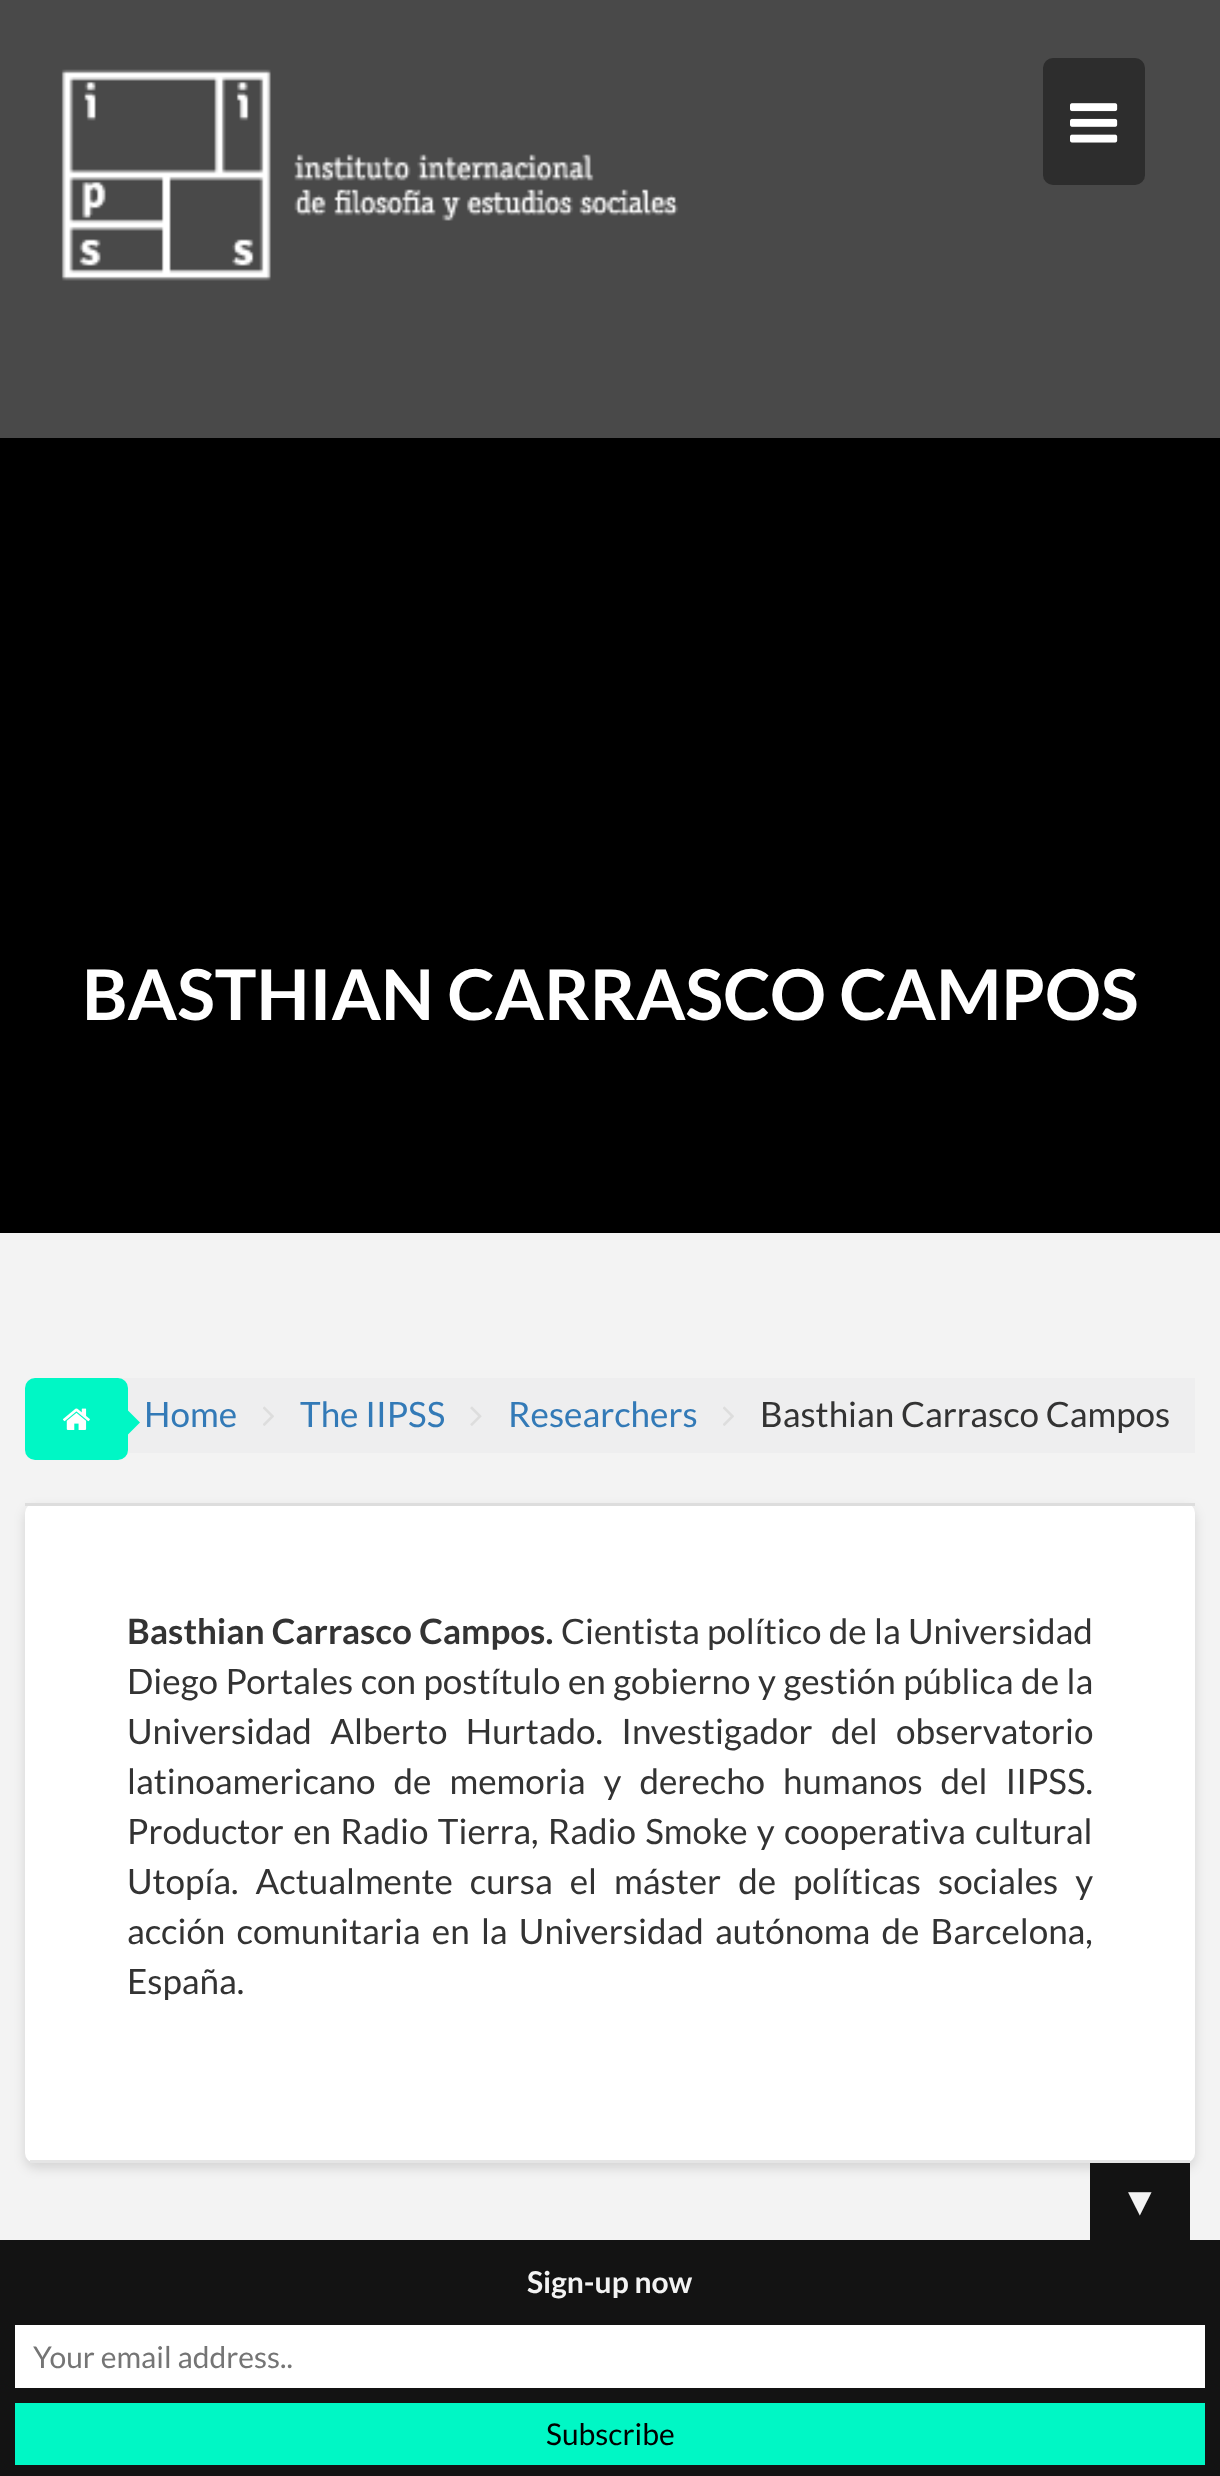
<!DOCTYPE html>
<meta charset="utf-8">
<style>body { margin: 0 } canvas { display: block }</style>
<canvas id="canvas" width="1220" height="2476"></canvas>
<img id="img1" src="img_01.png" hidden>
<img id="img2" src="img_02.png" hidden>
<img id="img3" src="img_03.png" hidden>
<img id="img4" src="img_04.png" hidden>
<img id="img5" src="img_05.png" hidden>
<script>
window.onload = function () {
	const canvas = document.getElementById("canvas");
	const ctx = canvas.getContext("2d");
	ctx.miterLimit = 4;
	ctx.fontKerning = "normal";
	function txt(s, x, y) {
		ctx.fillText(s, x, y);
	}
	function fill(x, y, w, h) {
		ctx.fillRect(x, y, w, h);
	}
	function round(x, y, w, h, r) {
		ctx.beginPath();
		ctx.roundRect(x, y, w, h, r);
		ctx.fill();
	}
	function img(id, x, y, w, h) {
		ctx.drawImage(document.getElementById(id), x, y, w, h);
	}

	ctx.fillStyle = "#F3F3F3";
	fill(0, 0, 1220, 2476);
	ctx.fillStyle = "#494949";
	fill(0, 0, 1220, 438);
	img("img1", 61, 69, 618, 212);
	ctx.fillStyle = "#2D2D2D";
	round(1043, 58, 102, 127, 10);
	img("img2", 1070, 103, 48, 40);
	ctx.fillStyle = "#000000";
	fill(0, 438, 1220, 795);
	ctx.fillStyle = "#EEEEEF";
	fill(120, 1378, 1075, 75);
	ctx.fillStyle = "#00F7C5";
	round(25, 1378, 103, 82, 10);
	img("img3", 63, 1408, 27, 22);
	ctx.beginPath();
	ctx.moveTo(127.5, 1435);
	ctx.lineTo(127.5, 1410);
	ctx.lineTo(140, 1422.5);
	ctx.closePath();
	ctx.fill();
	img("img4", 263, 1406, 11, 20);
	img("img5", 470, 1406, 12, 20);
	img("img4", 723, 1406, 11, 20);
	ctx.fillStyle = "rgba(0, 0, 0, 0.13)";
	ctx.filter = "blur(6px)";
	ctx.beginPath();
	ctx.roundRect(25, 1508, 1170, 660, 10);
	ctx.fill();
	ctx.filter = "none";
	ctx.fillStyle = "#FFFFFF";
	round(25, 1503, 1170, 660, 10);
	ctx.fillStyle = "#E5E5E5";
	fill(30, 2160, 1160, 3);
	ctx.fillStyle = "#DDDDDD";
	fill(25, 1503, 1170, 3);
	ctx.fillStyle = "#131313";
	fill(1090, 2163, 100, 77);
	fill(0, 2240, 1220, 236);
	ctx.fillStyle = "#FFFFFF";
	fill(15, 2325, 1190, 63);
	ctx.fillStyle = "#00F7C5";
	fill(15, 2403, 1190, 62);
	ctx.font = "bold 70px Lato";
	ctx.fillStyle = "#FFFFFF";
	txt("BASTHIAN CARRASCO CAMPOS", 82, 1020);
	ctx.font = "35px Lato";
	ctx.fillStyle = "#337AB7";
	txt("Home", 144, 1427);
	txt("The IIPSS", 300, 1427);
	txt("Researchers", 508, 1427);
	ctx.fillStyle = "#333333";
	txt("Basthian Carrasco Campos", 760, 1427);
	ctx.wordSpacing = "0.5px";
	ctx.font = "bold 35px Lato";
	txt("Basthian Carrasco Campos.", 127, 1644);
	ctx.font = "35px Lato";
	txt("Cientista político de la Universidad", 561, 1644);
	ctx.wordSpacing = "0.75px";
	txt("Diego Portales con postítulo en gobierno y gestión pública de la", 127, 1694);
	ctx.wordSpacing = "11.5px";
	txt("Universidad Alberto Hurtado. Investigador del observatorio", 127, 1744);
	ctx.wordSpacing = "11.25px";
	txt("latinoamericano de memoria y derecho humanos del IIPSS.", 127, 1794);
	ctx.wordSpacing = "2.5px";
	txt("Productor en Radio Tierra, Radio Smoke y cooperativa cultural", 127, 1844);
	ctx.wordSpacing = "10.25px";
	txt("Utopía. Actualmente cursa el máster de políticas sociales y", 127, 1894);
	ctx.wordSpacing = "4.5px";
	txt("acción comunitaria en la Universidad autónoma de Barcelona,", 127, 1944);
	ctx.wordSpacing = "0px";
	txt("España.", 127, 1994);
	ctx.font = "40px Liberation Sans";
	ctx.fillStyle = "#F3F3F3";
	txt("▼", 1120, 2215);
	ctx.font = "bold 30px Lato";
	txt("Sign-up now", 527, 2293);
	ctx.font = "30px Lato";
	ctx.fillStyle = "#757575";
	txt("Your email address..", 33, 2368);
	ctx.fillStyle = "#000000";
	txt("Subscribe", 546, 2445);
};
</script>
